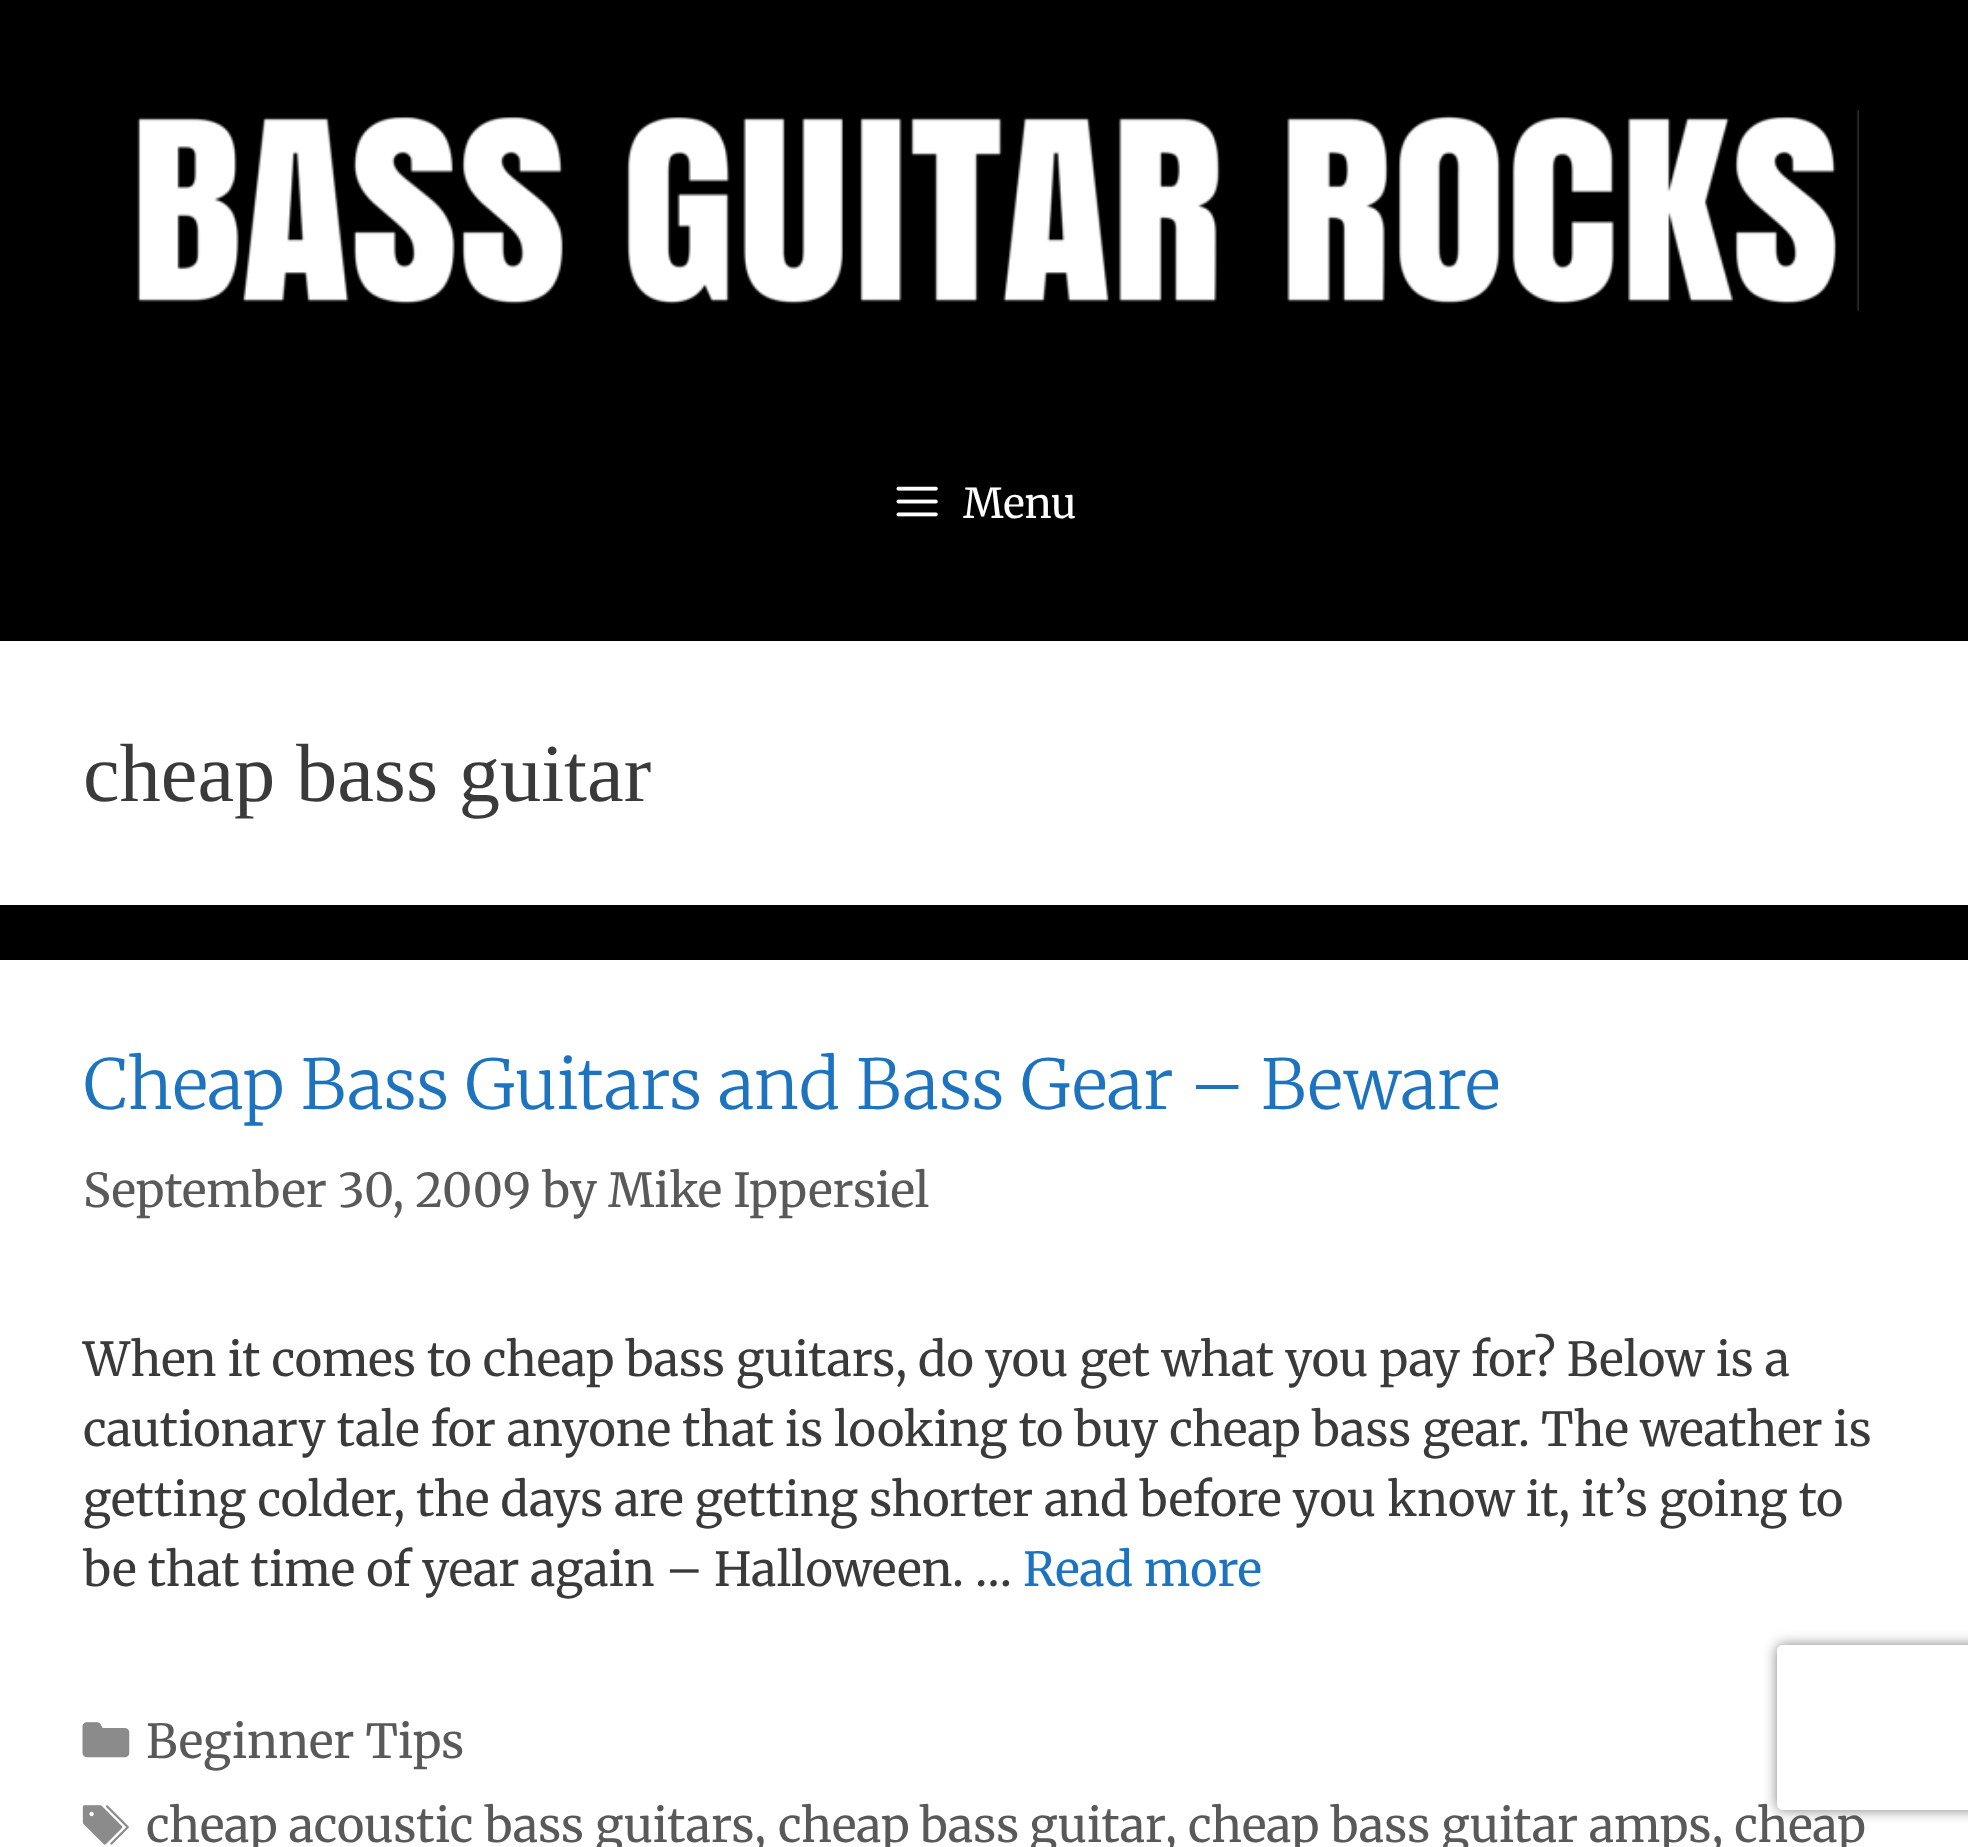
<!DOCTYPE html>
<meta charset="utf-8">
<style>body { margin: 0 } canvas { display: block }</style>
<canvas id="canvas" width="1968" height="1847"></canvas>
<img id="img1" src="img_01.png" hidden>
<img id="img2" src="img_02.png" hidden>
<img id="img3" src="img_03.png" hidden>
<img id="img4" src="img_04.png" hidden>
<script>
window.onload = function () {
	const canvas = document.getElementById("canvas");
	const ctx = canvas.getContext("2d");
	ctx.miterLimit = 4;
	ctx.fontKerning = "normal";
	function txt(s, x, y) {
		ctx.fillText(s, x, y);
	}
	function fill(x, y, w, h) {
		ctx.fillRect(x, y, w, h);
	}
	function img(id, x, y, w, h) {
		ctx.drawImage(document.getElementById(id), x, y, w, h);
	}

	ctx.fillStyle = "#000000";
	fill(0, 0, 1968, 1847);
	img("img1", 137, 110, 1722, 201);
	img("img2", 896, 486, 42, 31);
	ctx.fillStyle = "#FFFFFF";
	fill(0, 641, 1968, 264);
	fill(0, 960, 1968, 887);
	img("img3", 82, 1722, 48, 36);
	img("img4", 82, 1805, 47, 40);
	ctx.save();
	ctx.beginPath();
	ctx.moveTo(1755, 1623);
	ctx.lineTo(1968, 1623);
	ctx.lineTo(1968, 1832);
	ctx.lineTo(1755, 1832);
	ctx.closePath();
	ctx.moveTo(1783, 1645);
	ctx.lineTo(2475, 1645);
	ctx.bezierCurveTo(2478.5, 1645, 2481, 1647.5, 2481, 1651);
	ctx.lineTo(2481, 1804);
	ctx.bezierCurveTo(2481, 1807.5, 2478.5, 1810, 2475, 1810);
	ctx.lineTo(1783, 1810);
	ctx.bezierCurveTo(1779.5, 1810, 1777, 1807.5, 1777, 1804);
	ctx.lineTo(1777, 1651);
	ctx.bezierCurveTo(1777, 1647.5, 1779.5, 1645, 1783, 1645);
	ctx.closePath();
	ctx.clip("evenodd");
	ctx.fillStyle = "#808080";
	ctx.filter = "blur(7px)";
	ctx.beginPath();
	ctx.roundRect(1777, 1645, 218, 165, 6);
	ctx.fill();
	ctx.filter = "none";
	ctx.restore();
	ctx.font = "41px Merriweather";
	txt("Menu", 963, 518);
	ctx.font = "82.5px Liberation Serif";
	ctx.fillStyle = "#3A3A3A";
	txt("cheap bass guitar", 83, 801);
	ctx.font = "300 68.75px Merriweather";
	ctx.fillStyle = "#1E73BE";
	txt("Cheap Bass Guitars and Bass Gear – Beware", 83, 1109);
	ctx.font = "46.75px Merriweather";
	ctx.fillStyle = "#595959";
	txt("September 30, 2009 by Mike Ippersiel", 83, 1207);
	ctx.fillStyle = "#3A3A3A";
	txt("When it comes to cheap bass guitars, do you get what you pay for? Below is a", 83, 1376);
	txt("cautionary tale for anyone that is looking to buy cheap bass gear. The weather is", 83, 1446);
	txt("getting colder, the days are getting shorter and before you know it, it’s going to", 83, 1516);
	txt("be that time of year again – Halloween. …", 83, 1586);
	ctx.fillStyle = "#1E73BE";
	txt("Read more", 1023, 1586);
	ctx.fillStyle = "#595959";
	txt("Beginner Tips", 146, 1758);
	txt("cheap acoustic bass guitars,", 146, 1842);
	ctx.wordSpacing = "-1px";
	txt("cheap bass guitar", 778, 1842);
	ctx.wordSpacing = "0px";
	txt(", cheap bass guitar amps, cheap", 1165, 1842);
};
</script>
